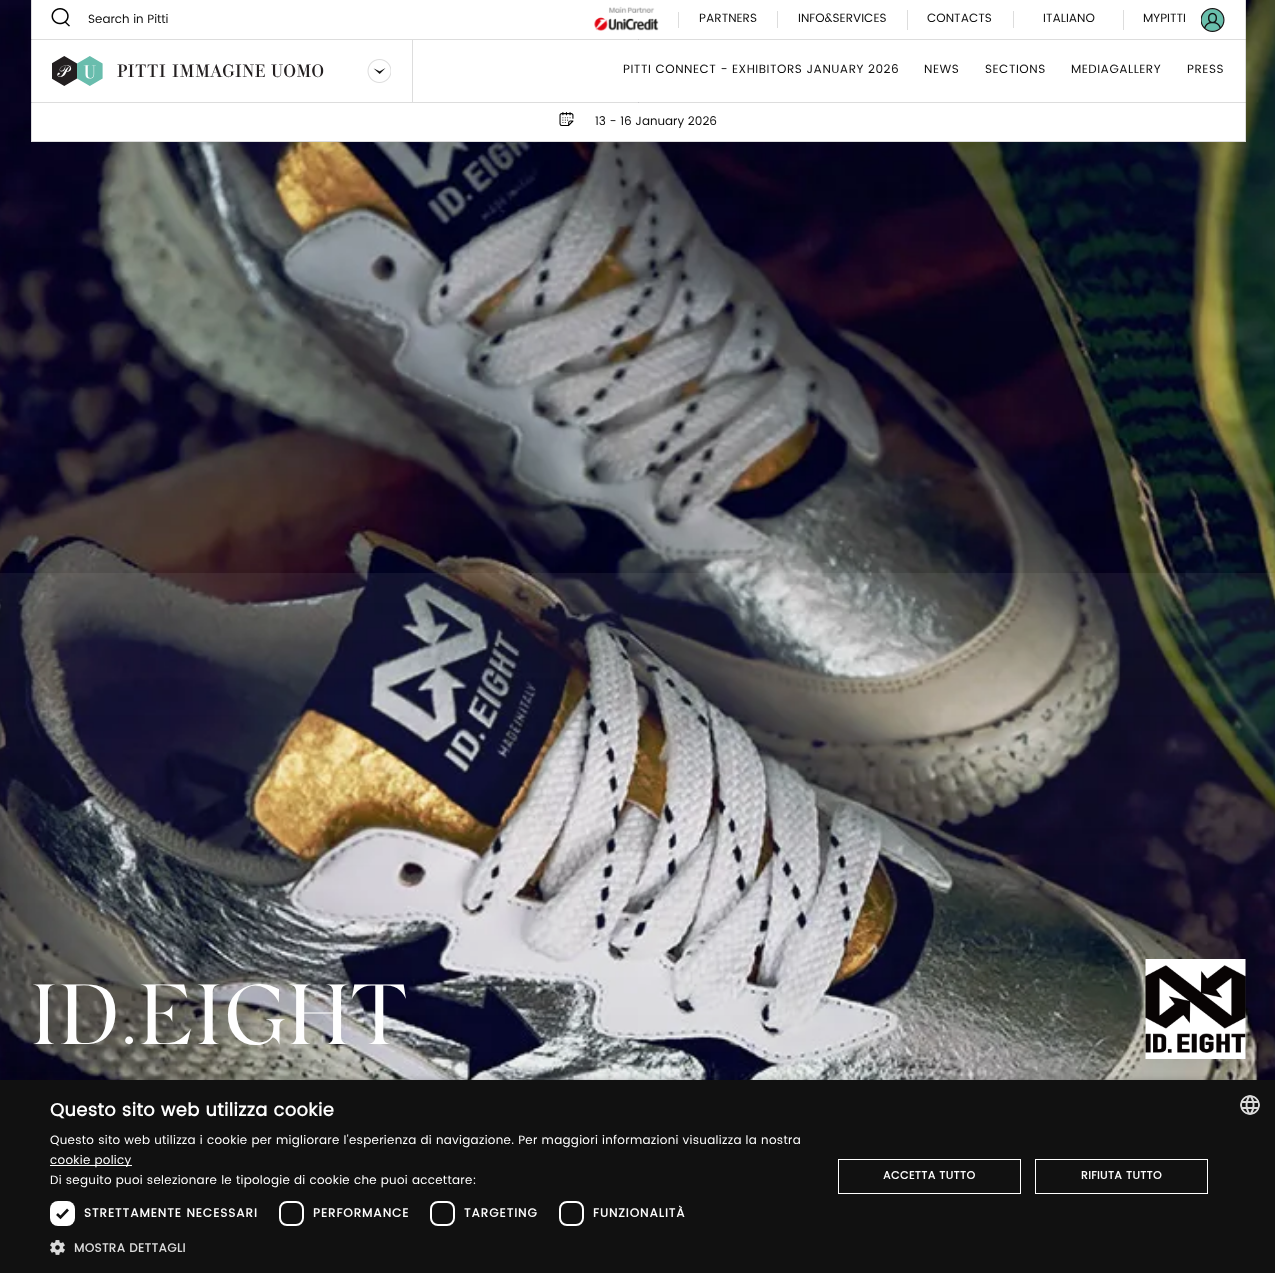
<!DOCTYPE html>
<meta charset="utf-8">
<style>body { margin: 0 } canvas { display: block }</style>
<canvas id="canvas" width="1275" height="1273"></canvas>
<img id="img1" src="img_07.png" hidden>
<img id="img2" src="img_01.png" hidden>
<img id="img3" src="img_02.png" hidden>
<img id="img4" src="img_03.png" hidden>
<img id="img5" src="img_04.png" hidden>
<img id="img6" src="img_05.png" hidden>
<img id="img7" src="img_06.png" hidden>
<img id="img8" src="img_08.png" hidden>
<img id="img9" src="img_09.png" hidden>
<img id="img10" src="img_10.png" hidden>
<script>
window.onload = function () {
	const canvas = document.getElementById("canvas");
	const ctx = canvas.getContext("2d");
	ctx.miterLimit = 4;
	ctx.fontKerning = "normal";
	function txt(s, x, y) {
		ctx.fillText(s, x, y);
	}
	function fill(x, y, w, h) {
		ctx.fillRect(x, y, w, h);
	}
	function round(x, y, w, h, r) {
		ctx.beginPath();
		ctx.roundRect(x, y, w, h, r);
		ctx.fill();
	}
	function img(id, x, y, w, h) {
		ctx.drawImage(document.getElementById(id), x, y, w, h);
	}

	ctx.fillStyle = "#FFFFFF";
	fill(0, 0, 1275, 1273);
	img("img1", 0, 0, 1275, 1080);
	fill(32, 0, 1213, 39);
	ctx.fillStyle = "#DDDDDD";
	fill(1245, 0, 1, 39);
	fill(31, 0, 1, 39);
	img("img2", 51, 8, 19, 19);
	img("img3", 594, 6, 65, 25);
	fill(678, 12, 1, 16);
	fill(777, 11, 1, 17);
	fill(907, 10, 1, 20);
	fill(1013, 11, 1, 17);
	fill(1123, 10, 1, 20);
	img("img4", 1201, 8, 24, 24);
	ctx.fillStyle = "#FFFFFF";
	ctx.beginPath();
	ctx.rect(31.5, 39.5, 1214, 63);
	ctx.fill();
	ctx.strokeStyle = "#DDDDDD";
	ctx.stroke();
	ctx.fillStyle = "#DDDDDD";
	fill(412, 40, 1, 62);
	img("img5", 52, 56, 272, 30);
	img("img6", 367, 59, 24, 24);
	ctx.fillStyle = "#FFFFFF";
	fill(32, 103, 1213, 38);
	ctx.fillStyle = "#DDDDDD";
	fill(1245, 103, 1, 39);
	fill(31, 141, 1215, 1);
	fill(31, 103, 1, 39);
	img("img7", 559, 112, 15, 14);
	img("img8", 1145, 959, 101, 100);
	ctx.fillStyle = "rgba(0, 0, 0, 0.35)";
	ctx.filter = "blur(4px)";
	ctx.beginPath();
	ctx.rect(1, 1082, 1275, 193);
	ctx.fill();
	ctx.filter = "none";
	ctx.fillStyle = "#111111";
	fill(0, 1080, 1275, 193);
	ctx.fillStyle = "#FFFFFF";
	fill(50, 1165, 82, 1);
	round(50, 1201, 25, 25, 8);
	ctx.beginPath();
	ctx.moveTo(57, 1214);
	ctx.lineTo(60.5, 1217.5);
	ctx.lineTo(68, 1209.5);
	ctx.strokeStyle = "#111111";
	ctx.lineWidth = 2.6;
	ctx.stroke();
	ctx.beginPath();
	ctx.roundRect(280, 1202, 23, 23, 7);
	ctx.strokeStyle = "#FFFFFF";
	ctx.lineWidth = 2;
	ctx.stroke();
	ctx.beginPath();
	ctx.roundRect(431, 1202, 23, 23, 7);
	ctx.stroke();
	ctx.beginPath();
	ctx.roundRect(560, 1202, 23, 23, 7);
	ctx.stroke();
	img("img9", 50, 1240, 15, 15);
	ctx.lineWidth = 1;
	ctx.strokeRect(838.5, 1159.5, 182, 34);
	ctx.strokeRect(1035.5, 1159.5, 172, 34);
	img("img10", 1240, 1095, 20, 20);
	ctx.font = "12px Poppins";
	ctx.fillStyle = "#111111";
	txt("Search in Pitti", 88, 23);
	txt("PARTNERS", 699, 22);
	txt("INFO&SERVICES", 798, 22);
	txt("CONTACTS", 927, 22);
	txt("ITALIANO", 1043, 22);
	txt("MYPITTI", 1143, 22);
	ctx.letterSpacing = "0.5px";
	txt("PITTI CONNECT - EXHIBITORS JANUARY 2026", 623, 73);
	txt("NEWS", 924, 73);
	txt("SECTIONS", 985, 73);
	txt("MEDIAGALLERY", 1071, 73);
	txt("PRESS", 1187, 73);
	ctx.letterSpacing = "0px";
	txt("13 - 16 January 2026", 595, 125);
	ctx.letterSpacing = "0.75px";
	ctx.font = "85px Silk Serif";
	ctx.fillStyle = "#FEFEFE";
	txt("ID.EIGHT", 30, 1044);
	ctx.letterSpacing = "0.4px";
	ctx.font = "bold 18px Poppins";
	txt("Questo sito web utilizza cookie", 50, 1116);
	ctx.letterSpacing = "0.3px";
	ctx.font = "12px Poppins";
	txt("Questo sito web utilizza i cookie per migliorare l'esperienza di navigazione. Per maggiori informazioni visualizza la nostra", 50, 1144);
	txt("cookie policy", 50, 1164);
	txt("Di seguito puoi selezionare le tipologie di cookie che puoi accettare:", 50, 1184);
	ctx.letterSpacing = "1px";
	ctx.font = "bold 12px Poppins";
	txt("STRETTAMENTE NECESSARI", 84, 1217);
	txt("PERFORMANCE", 313, 1217);
	txt("TARGETING", 464, 1217);
	txt("FUNZIONALITÀ", 593, 1217);
	ctx.letterSpacing = "0.4px";
	ctx.fillStyle = "#DBDBDB";
	txt("MOSTRA DETTAGLI", 74, 1252);
	ctx.font = "bold 11px Poppins";
	ctx.fillStyle = "#FEFEFE";
	txt("ACCETTA TUTTO", 883, 1179);
	txt("RIFIUTA TUTTO", 1081, 1179);
};
</script>
